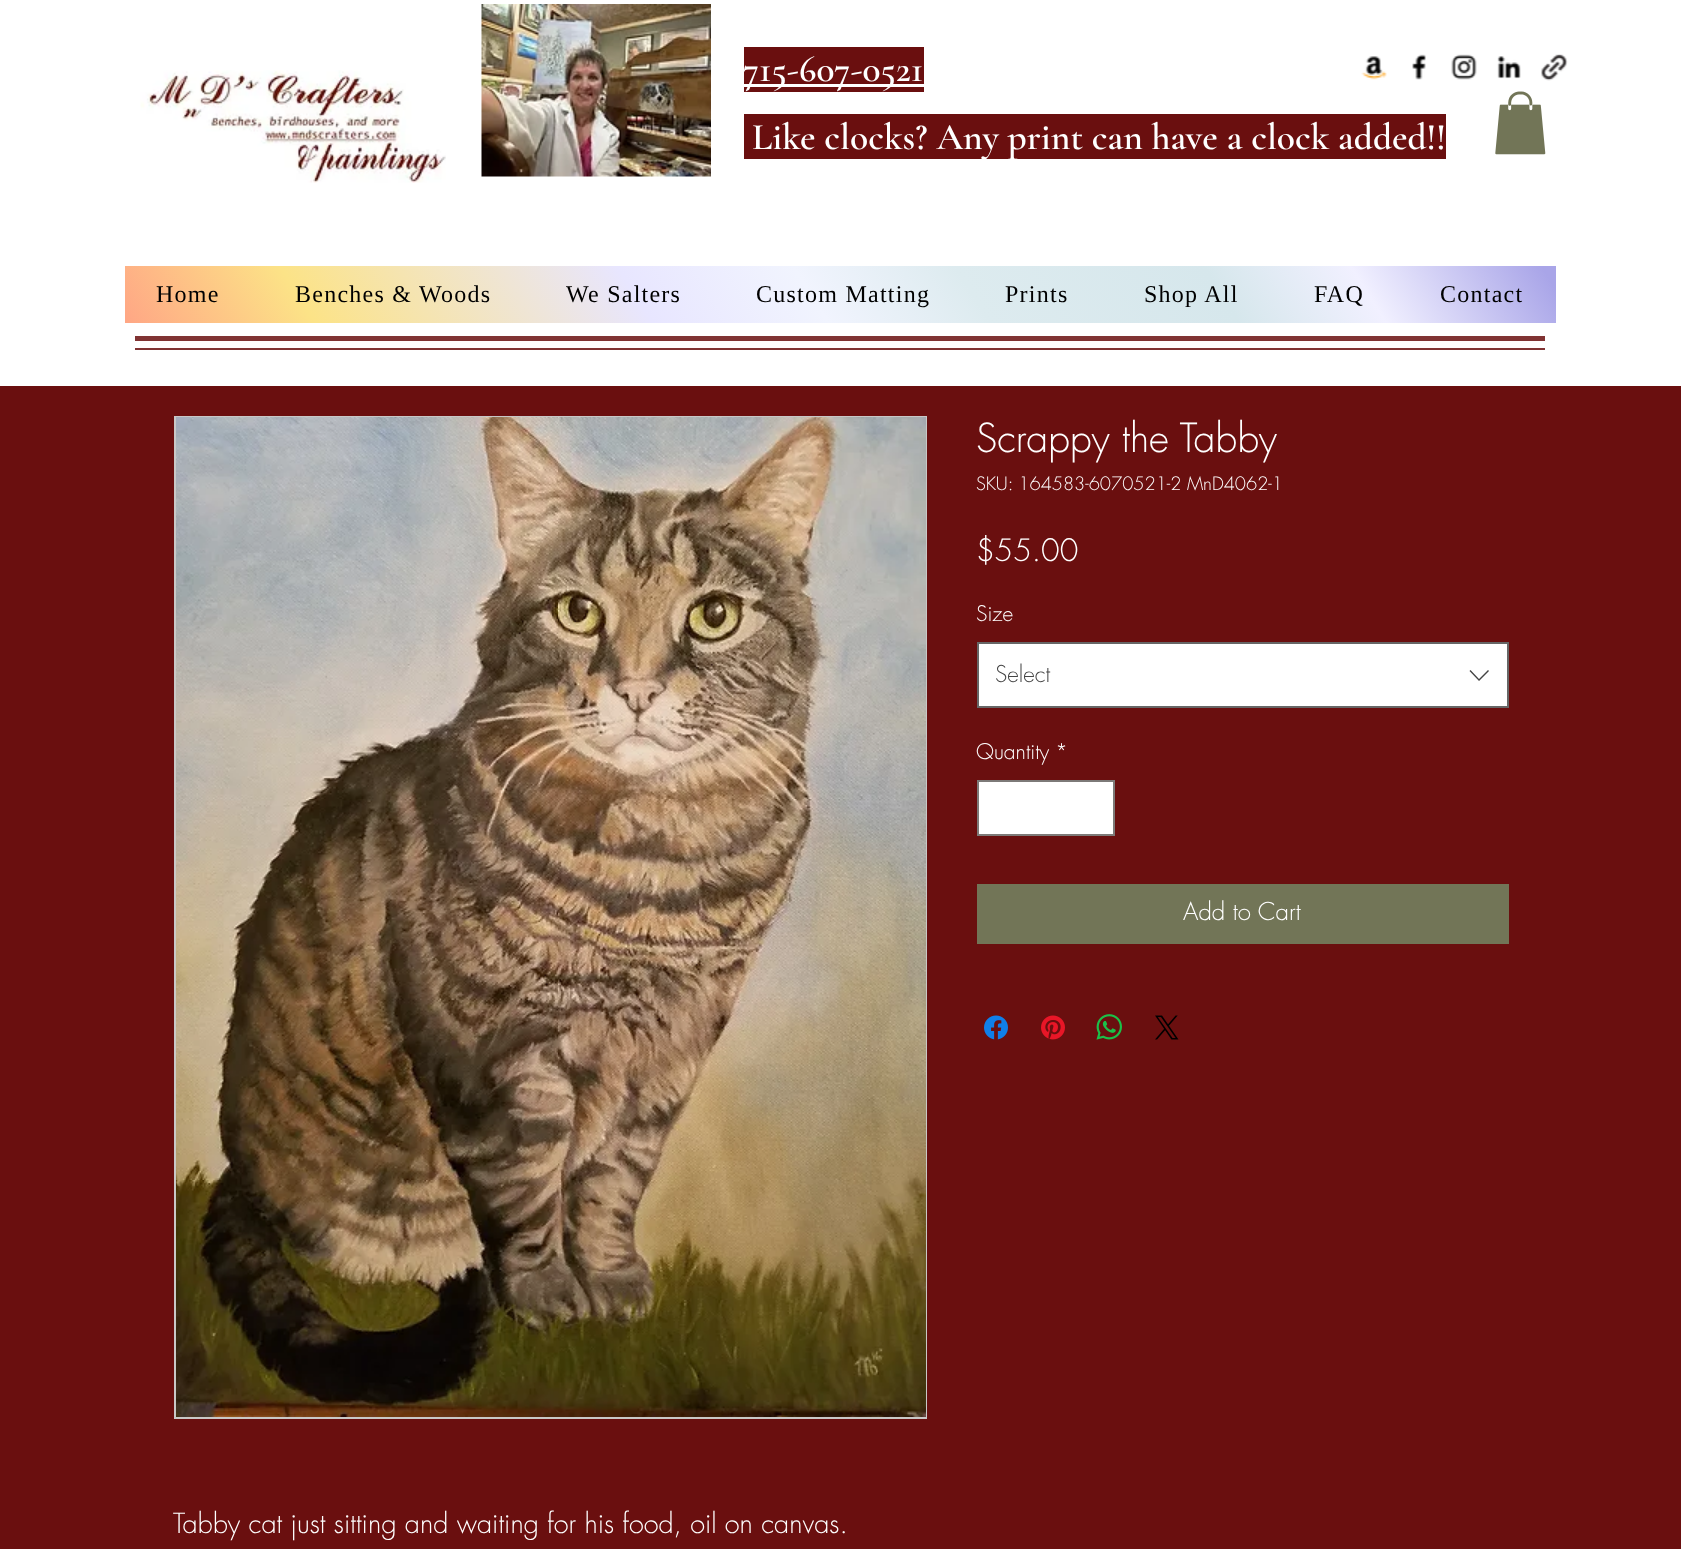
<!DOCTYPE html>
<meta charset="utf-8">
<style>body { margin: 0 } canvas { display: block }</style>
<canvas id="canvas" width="1681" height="1549"></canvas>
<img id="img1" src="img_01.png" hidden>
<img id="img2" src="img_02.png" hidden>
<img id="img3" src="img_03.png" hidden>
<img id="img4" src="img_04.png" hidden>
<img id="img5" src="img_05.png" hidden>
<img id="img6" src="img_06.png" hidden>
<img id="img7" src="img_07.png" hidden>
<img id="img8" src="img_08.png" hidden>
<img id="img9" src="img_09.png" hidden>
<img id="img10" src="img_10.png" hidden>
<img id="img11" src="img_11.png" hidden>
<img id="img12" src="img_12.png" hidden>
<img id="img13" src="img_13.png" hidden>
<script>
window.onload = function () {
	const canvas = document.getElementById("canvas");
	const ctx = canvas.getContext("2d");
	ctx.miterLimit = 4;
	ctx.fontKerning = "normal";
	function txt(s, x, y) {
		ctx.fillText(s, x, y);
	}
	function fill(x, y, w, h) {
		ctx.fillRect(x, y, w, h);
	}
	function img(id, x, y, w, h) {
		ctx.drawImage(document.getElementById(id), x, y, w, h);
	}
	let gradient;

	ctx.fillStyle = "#6A0F0F";
	fill(0, 0, 1681, 1549);
	ctx.fillStyle = "#FFFFFF";
	fill(0, 0, 1681, 386);
	img("img1", 140, 70, 306, 113);
	img("img2", 481, 4, 230, 173);
	ctx.fillStyle = "#6A0F0F";
	fill(744, 47, 180, 45);
	ctx.fillStyle = "#FFFFFF";
	fill(744, 84, 180, 3);
	ctx.fillStyle = "#6A0F0F";
	fill(744, 114, 702, 45);
	img("img3", 1361, 56, 26, 24);
	img("img4", 1412, 54, 14, 26);
	img("img5", 1451, 54, 26, 26);
	img("img6", 1497, 56, 24, 23);
	img("img7", 1541, 54, 27, 27);
	img("img8", 1495, 91, 51, 64);
	gradient = ctx.createLinearGradient(313, 624, 1367, -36);
	gradient.addColorStop(0, "#FFA685");
	gradient.addColorStop(0.13, "#FCE387");
	gradient.addColorStop(0.36, "#E8E6FF");
	gradient.addColorStop(0.48, "#F1F4FE");
	gradient.addColorStop(0.59, "#DDEBEF");
	gradient.addColorStop(0.76, "#D6E7EC");
	gradient.addColorStop(0.86, "#F1F0FF");
	gradient.addColorStop(0.99, "#A9A5E8");
	ctx.fillStyle = gradient;
	fill(125, 266, 1431, 57);
	ctx.fillStyle = "#803333";
	fill(135, 336, 1410, 5);
	fill(135, 348, 1410, 2);
	ctx.fillStyle = "#FFFFFF";
	ctx.beginPath();
	ctx.rect(978, 643, 530, 64);
	ctx.fill();
	ctx.strokeStyle = "#666666";
	ctx.lineWidth = 2;
	ctx.stroke();
	ctx.fillStyle = "#444444";
	ctx.beginPath();
	ctx.moveTo(1488, 670);
	ctx.lineTo(1489, 671);
	ctx.lineTo(1479, 681);
	ctx.lineTo(1469.5, 671);
	ctx.lineTo(1470.5, 670);
	ctx.lineTo(1479, 679);
	ctx.closePath();
	ctx.fill("evenodd");
	ctx.fillStyle = "#FFFFFF";
	ctx.beginPath();
	ctx.rect(978, 781, 136, 54);
	ctx.fill();
	ctx.strokeStyle = "#7D7A78";
	ctx.stroke();
	ctx.fillStyle = "#727557";
	fill(977, 884, 532, 60);
	img("img9", 984, 1015, 24, 25);
	img("img10", 1041, 1015, 24, 25);
	img("img11", 1096, 1014, 26, 26);
	img("img12", 1155, 1015, 24, 25);
	ctx.strokeStyle = "#C9C8C7";
	ctx.strokeRect(175, 417, 751, 1001);
	img("img13", 176, 417, 750, 1000);
	ctx.font = "600 37.5px Cormorant Garamond";
	ctx.fillStyle = "#FFFFFF";
	txt("715-607-0521", 743, 81);
	txt("Like clocks? Any print can have a clock added!!", 752, 149);
	ctx.letterSpacing = "1.25px";
	ctx.font = "24px Liberation Serif";
	ctx.fillStyle = "#000000";
	txt("Home", 156, 302);
	txt("Benches & Woods", 295, 302);
	txt("We Salters", 566, 302);
	txt("Custom Matting", 756, 302);
	txt("Prints", 1005, 302);
	txt("Shop All", 1144, 302);
	txt("FAQ", 1314, 302);
	txt("Contact", 1440, 302);
	ctx.letterSpacing = "0px";
	ctx.font = "300 39px futura";
	ctx.fillStyle = "#FFFFFF";
	txt("Scrappy the Tabby", 976, 452);
	ctx.font = "300 18px futura";
	txt("SKU: 164583-6070521-2 MnD4062-1", 976, 490);
	ctx.font = "300 30px futura";
	txt("$55.00", 976, 561);
	ctx.font = "300 21px futura";
	txt("Size", 976, 621);
	ctx.font = "300 22.5px futura";
	ctx.fillStyle = "#444444";
	txt("Select", 995, 682);
	ctx.font = "300 21px futura";
	ctx.fillStyle = "#FFFFFF";
	txt("Quantity", 976, 759);
	txt("*", 1055, 759);
	ctx.font = "300 24px futura";
	txt("Add to Cart", 1183, 920);
	ctx.font = "300 27px futura";
	txt("Tabby cat just sitting and waiting for his food, oil on canvas.", 173, 1533);
};
</script>
